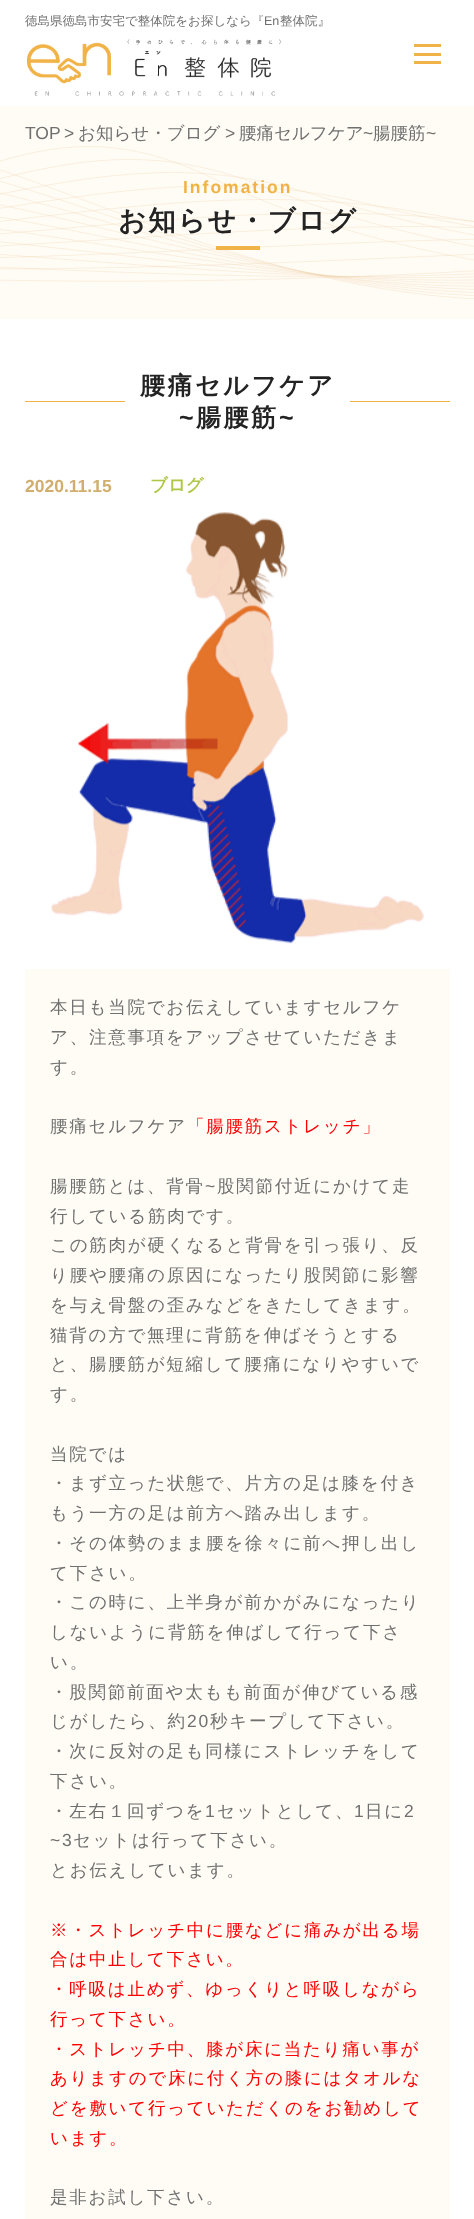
(async () => {
    const canvas = document.querySelector("canvas");
    canvas.width = 474;
    canvas.height = 2219;
    const context = canvas.getContext("2d");
    context.miterLimit = 4;
    context.fontKerning = "normal";
    function write(s, x, y, font, color) {
        context.font = font;
        context.fillStyle = color;
        context.fillText(s, x, y);
    }
    function block(x, y, w, h, color) {
        context.fillStyle = color;
        context.fillRect(x, y, w, h);
    }
    async function photo(src, x, y, w, h) {
        const img = new Image();
        img.src = src;
        await img.decode();
        context.drawImage(img, x, y, w, h);
    }

    block(0, 0, 474, 2219, "rgb(255, 255, 255)");
    write("徳島県徳島市安宅で整体院をお探しなら『", 25, 25, "500 12.5px WenQuanYi Zen Hei", "rgb(112, 112, 112)");
    write("En", 264, 25, "12.5px Liberation Sans", "rgb(112, 112, 112)");
    write("整体院』", 280, 25, "500 12.5px WenQuanYi Zen Hei", "rgb(112, 112, 112)");
    await photo("media/1.png", 27, 39, 255, 58);
    block(414, 44, 27, 3, "rgb(241, 179, 72)");
    block(414, 53, 27, 3, "rgb(241, 179, 72)");
    block(414, 61, 27, 3, "rgb(241, 179, 72)");
    block(0, 106, 474, 213, "rgb(255, 252, 245)");
    await photo("media/2.png", 0, 146, 474, 153);
    write("TOP", 25, 139, "17.5px Liberation Sans", "rgb(112, 112, 112)");
    write(">", 64, 139, "17.5px Liberation Sans", "rgb(112, 112, 112)");
    write("お知らせ・ブログ", 78, 139, "500 17.5px WenQuanYi Zen Hei", "rgb(112, 112, 112)");
    write(">", 225, 139, "17.5px Liberation Sans", "rgb(112, 112, 112)");
    write("腰痛セルフケア", 239, 139, "500 17.5px WenQuanYi Zen Hei", "rgb(112, 112, 112)");
    write("~", 363, 139, "17.5px Liberation Sans", "rgb(112, 112, 112)");
    write("腸腰筋", 373, 139, "500 17.5px WenQuanYi Zen Hei", "rgb(112, 112, 112)");
    write("~", 426, 139, "17.5px Liberation Sans", "rgb(112, 112, 112)");
    context.letterSpacing = "2px";
    write("Infomation", 183, 193, "bold 17.5px Liberation Sans", "rgb(241, 179, 72)");
    write("お知らせ・ブログ", 118, 230, "bold 27.5px WenQuanYi Zen Hei", "rgb(35, 35, 35)");
    block(216, 246, 44, 4, "rgb(241, 179, 72)");
    context.letterSpacing = "2.5px";
    write("腰痛セルフケア", 140, 394, "bold 25px WenQuanYi Zen Hei", "rgb(35, 35, 35)");
    block(25, 401, 100, 1, "rgb(241, 179, 72)");
    block(350, 401, 100, 1, "rgb(241, 179, 72)");
    write("~", 179, 426, "bold 25px Liberation Sans", "rgb(35, 35, 35)");
    write("腸腰筋", 196, 426, "bold 25px WenQuanYi Zen Hei", "rgb(35, 35, 35)");
    write("~", 279, 426, "bold 25px Liberation Sans", "rgb(35, 35, 35)");
    context.letterSpacing = "0px";
    write("2020.11.15", 25, 492, "bold 17.5px Liberation Sans", "rgb(209, 173, 110)");
    write("ブログ", 150, 491, "bold 17.5px WenQuanYi Zen Hei", "rgb(174, 199, 71)");
    await photo("media/3.png", 51, 512, 373, 432);
    block(25, 969, 425, 1250, "rgb(255, 252, 245)");
    context.letterSpacing = "1.75px";
    write("本日も当院でお伝えしていますセルフケ", 50, 1013, "500 17.5px WenQuanYi Zen Hei", "rgb(112, 112, 112)");
    write("ア、注意事項をアップさせていただきま", 50, 1043, "500 17.5px WenQuanYi Zen Hei", "rgb(112, 112, 112)");
    write("す。", 50, 1073, "500 17.5px WenQuanYi Zen Hei", "rgb(112, 112, 112)");
    write("腰痛セルフケア", 50, 1132, "500 17.5px WenQuanYi Zen Hei", "rgb(112, 112, 112)");
    write("「腸腰筋ストレッチ」", 187, 1132, "500 17.5px WenQuanYi Zen Hei", "rgb(255, 0, 0)");
    write("腸腰筋とは、背骨", 50, 1192, "500 17.5px WenQuanYi Zen Hei", "rgb(112, 112, 112)");
    write("~", 205, 1192, "17.5px Liberation Sans", "rgb(112, 112, 112)");
    write("股関節付近にかけて走", 217, 1192, "500 17.5px WenQuanYi Zen Hei", "rgb(112, 112, 112)");
    write("行している筋肉です。", 50, 1222, "500 17.5px WenQuanYi Zen Hei", "rgb(112, 112, 112)");
    write("この筋肉が硬くなると背骨を引っ張り、反", 50, 1251, "500 17.5px WenQuanYi Zen Hei", "rgb(112, 112, 112)");
    write("り腰や腰痛の原因になったり股関節に影響", 50, 1281, "500 17.5px WenQuanYi Zen Hei", "rgb(112, 112, 112)");
    write("を与え骨盤の歪みなどをきたしてきます。", 50, 1311, "500 17.5px WenQuanYi Zen Hei", "rgb(112, 112, 112)");
    write("猫背の方で無理に背筋を伸ばそうとする", 50, 1341, "500 17.5px WenQuanYi Zen Hei", "rgb(112, 112, 112)");
    write("と、腸腰筋が短縮して腰痛になりやすいで", 50, 1370, "500 17.5px WenQuanYi Zen Hei", "rgb(112, 112, 112)");
    write("す。", 50, 1400, "500 17.5px WenQuanYi Zen Hei", "rgb(112, 112, 112)");
    write("当院では", 50, 1460, "500 17.5px WenQuanYi Zen Hei", "rgb(112, 112, 112)");
    write("・まず立った状態で、片方の足は膝を付き", 50, 1489, "500 17.5px WenQuanYi Zen Hei", "rgb(112, 112, 112)");
    write("もう一方の足は前方へ踏み出します。", 50, 1519, "500 17.5px WenQuanYi Zen Hei", "rgb(112, 112, 112)");
    write("・その体勢のまま腰を徐々に前へ押し出し", 50, 1549, "500 17.5px WenQuanYi Zen Hei", "rgb(112, 112, 112)");
    write("て下さい。", 50, 1579, "500 17.5px WenQuanYi Zen Hei", "rgb(112, 112, 112)");
    write("・この時に、上半身が前かがみになったり", 50, 1608, "500 17.5px WenQuanYi Zen Hei", "rgb(112, 112, 112)");
    write("しないように背筋を伸ばして行って下さ", 50, 1638, "500 17.5px WenQuanYi Zen Hei", "rgb(112, 112, 112)");
    write("い。", 50, 1668, "500 17.5px WenQuanYi Zen Hei", "rgb(112, 112, 112)");
    write("・股関節前面や太もも前面が伸びている感", 50, 1698, "500 17.5px WenQuanYi Zen Hei", "rgb(112, 112, 112)");
    write("じがしたら、約", 50, 1727, "500 17.5px WenQuanYi Zen Hei", "rgb(112, 112, 112)");
    write("20", 187, 1727, "17.5px Liberation Sans", "rgb(112, 112, 112)");
    write("秒キープして下さい。", 210, 1727, "500 17.5px WenQuanYi Zen Hei", "rgb(112, 112, 112)");
    write("・次に反対の足も同様にストレッチをして", 50, 1757, "500 17.5px WenQuanYi Zen Hei", "rgb(112, 112, 112)");
    write("下さい。", 50, 1787, "500 17.5px WenQuanYi Zen Hei", "rgb(112, 112, 112)");
    write("・左右１回ずつを", 50, 1817, "500 17.5px WenQuanYi Zen Hei", "rgb(112, 112, 112)");
    write("1", 205, 1817, "17.5px Liberation Sans", "rgb(112, 112, 112)");
    write("セットとして、", 217, 1817, "500 17.5px WenQuanYi Zen Hei", "rgb(112, 112, 112)");
    write("1", 354, 1817, "17.5px Liberation Sans", "rgb(112, 112, 112)");
    write("日に", 365, 1817, "500 17.5px WenQuanYi Zen Hei", "rgb(112, 112, 112)");
    write("2", 404, 1817, "17.5px Liberation Sans", "rgb(112, 112, 112)");
    write("~3", 50, 1846, "17.5px Liberation Sans", "rgb(112, 112, 112)");
    write("セットは行って下さい。", 73, 1846, "500 17.5px WenQuanYi Zen Hei", "rgb(112, 112, 112)");
    write("とお伝えしています。", 50, 1876, "500 17.5px WenQuanYi Zen Hei", "rgb(112, 112, 112)");
    write("※・ストレッチ中に腰などに痛みが出る場", 50, 1936, "500 17.5px WenQuanYi Zen Hei", "rgb(255, 0, 0)");
    write("合は中止して下さい。", 50, 1965, "500 17.5px WenQuanYi Zen Hei", "rgb(255, 0, 0)");
    write("・呼吸は止めず、ゆっくりと呼吸しながら", 50, 1995, "500 17.5px WenQuanYi Zen Hei", "rgb(255, 0, 0)");
    write("行って下さい。", 50, 2025, "500 17.5px WenQuanYi Zen Hei", "rgb(255, 0, 0)");
    write("・ストレッチ中、膝が床に当たり痛い事が", 50, 2055, "500 17.5px WenQuanYi Zen Hei", "rgb(255, 0, 0)");
    write("ありますので床に付く方の膝にはタオルな", 50, 2084, "500 17.5px WenQuanYi Zen Hei", "rgb(255, 0, 0)");
    write("どを敷いて行っていただくのをお勧めして", 50, 2114, "500 17.5px WenQuanYi Zen Hei", "rgb(255, 0, 0)");
    write("います。", 50, 2144, "500 17.5px WenQuanYi Zen Hei", "rgb(255, 0, 0)");
    write("是非お試し下さい。", 50, 2203, "500 17.5px WenQuanYi Zen Hei", "rgb(112, 112, 112)");
})();
